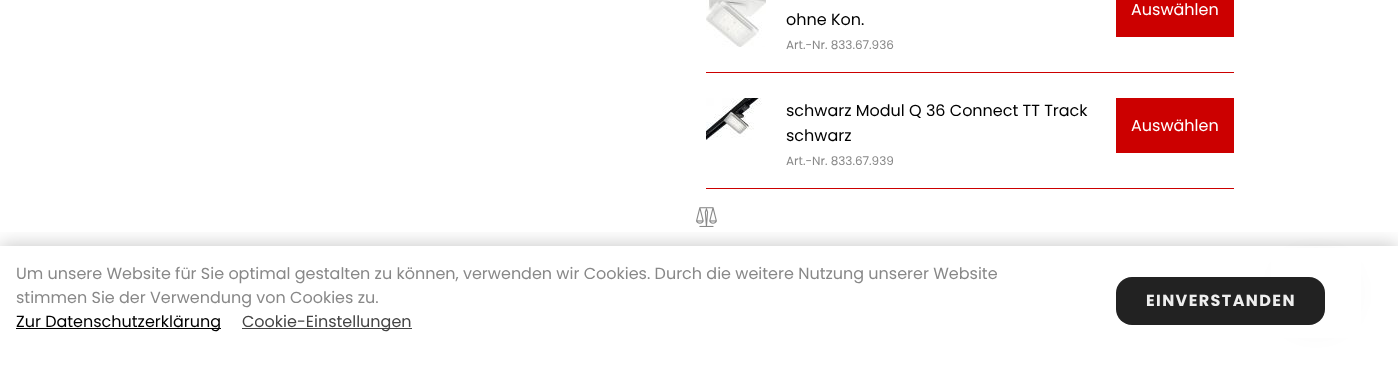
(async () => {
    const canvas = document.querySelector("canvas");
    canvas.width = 1398;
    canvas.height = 370;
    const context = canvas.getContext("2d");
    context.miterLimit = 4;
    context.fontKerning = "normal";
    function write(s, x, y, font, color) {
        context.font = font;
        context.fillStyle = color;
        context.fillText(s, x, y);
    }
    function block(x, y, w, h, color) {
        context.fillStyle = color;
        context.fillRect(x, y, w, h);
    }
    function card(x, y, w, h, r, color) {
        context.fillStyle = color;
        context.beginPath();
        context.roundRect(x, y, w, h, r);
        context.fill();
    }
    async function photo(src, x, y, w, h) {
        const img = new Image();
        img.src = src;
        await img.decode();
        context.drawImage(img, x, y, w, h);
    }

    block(0, 0, 1398, 370, "rgb(255, 255, 255)");
    block(706, 72, 528, 1, "rgb(204, 0, 0)");
    await photo("media/1.png", 706, 0, 60, 47);
    block(1116, 0, 118, 37, "rgb(204, 0, 0)");
    write("Auswählen", 1131, 15, "16px Poppins", "rgb(255, 255, 255)");
    write("ohne Kon.", 786, 25, "16px Poppins", "rgb(0, 0, 0)");
    write("Art.-Nr. 833.67.936", 786, 49, "12px Poppins", "rgb(136, 136, 136)");
    block(706, 188, 528, 1, "rgb(204, 0, 0)");
    await photo("media/2.png", 706, 98, 56, 42);
    write("schwarz Modul Q 36 Connect TT Track", 786, 116, "16px Poppins", "rgb(0, 0, 0)");
    write("schwarz", 786, 141, "16px Poppins", "rgb(0, 0, 0)");
    block(1116, 98, 118, 55, "rgb(204, 0, 0)");
    write("Auswählen", 1131, 131, "16px Poppins", "rgb(255, 255, 255)");
    write("Art.-Nr. 833.67.939", 786, 165, "12px Poppins", "rgb(136, 136, 136)");
    await photo("media/3.png", 696, 207, 21, 20);
    context.fillStyle = "rgba(0, 0, 0, 0.09)";
    context.filter = "blur(13.5px)";
    context.beginPath();
    context.roundRect(1284, 261, 64, 64, 32);
    context.fill();
    context.filter = "none";
    context.fillStyle = "rgb(255, 255, 255)";
    context.beginPath();
    context.arc(1316, 288, 32, 0, Math.PI * 2);
    context.fill();
    context.save();
    context.beginPath();
    context.rect(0, 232, 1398, 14);
    context.clip();
    context.fillStyle = "rgba(0, 0, 0, 0.2)";
    context.filter = "blur(9px)";
    context.beginPath();
    context.rect(0, 244, 1398, 124);
    context.fill();
    context.filter = "none";
    context.restore();
    block(1271, 248, 90, 90, "rgba(255, 255, 255, 0.95)");
    write("Um unsere Website für Sie optimal gestalten zu können, verwenden wir Cookies. Durch die weitere Nutzung unserer Website", 16, 279, "16px Poppins", "rgb(136, 136, 136)");
    write("stimmen Sie der Verwendung von Cookies zu.", 16, 303, "16px Poppins", "rgb(136, 136, 136)");
    block(16, 328, 205, 1, "rgb(0, 0, 0)");
    write("Zur Datenschutzerklärung", 16, 327, "16px Poppins", "rgb(0, 0, 0)");
    block(242, 328, 170, 1, "rgb(68, 68, 68)");
    write("Cookie-Einstellungen", 242, 327, "16px Poppins", "rgb(68, 68, 68)");
    card(1116, 277, 209, 48, 16, "rgb(34, 34, 34)");
    context.letterSpacing = "1.4px";
    write("EINVERSTANDEN", 1146, 306, "bold 16px Poppins", "rgb(238, 238, 238)");
})();
